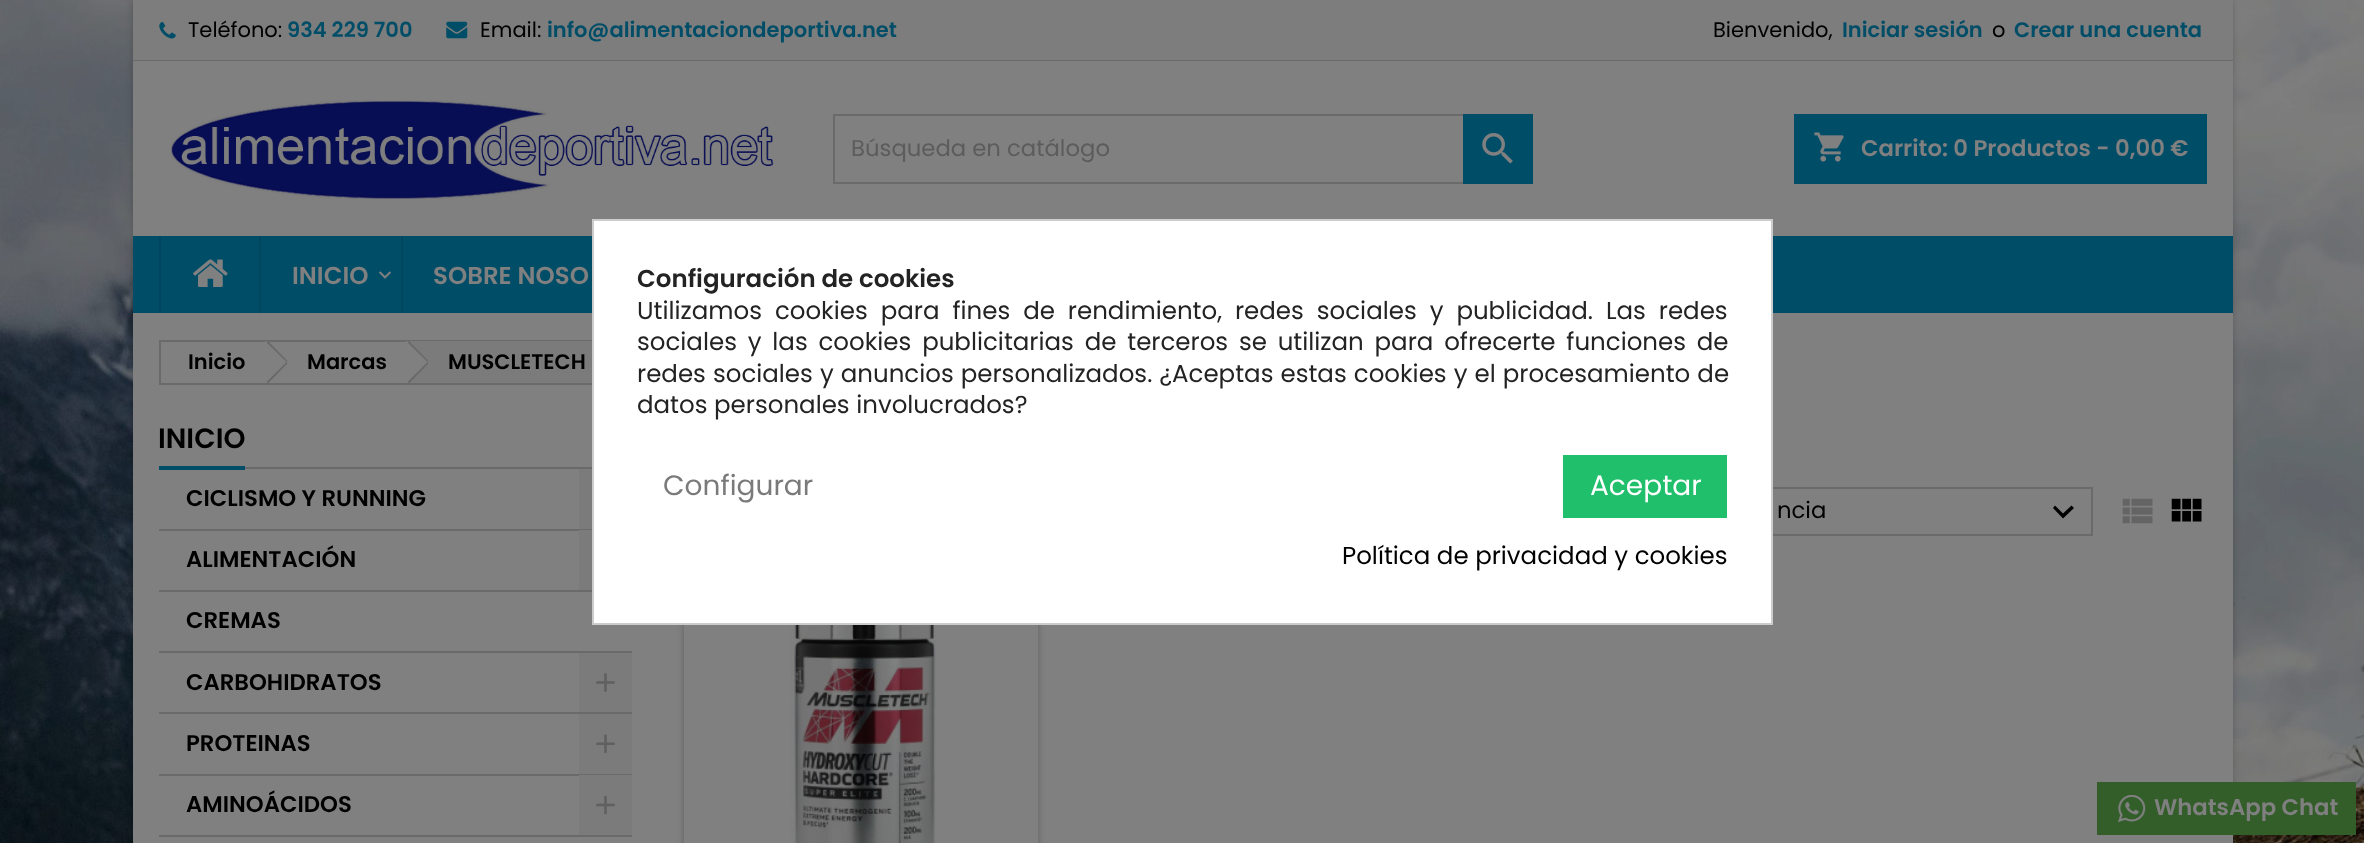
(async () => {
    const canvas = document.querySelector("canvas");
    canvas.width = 2364;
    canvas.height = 843;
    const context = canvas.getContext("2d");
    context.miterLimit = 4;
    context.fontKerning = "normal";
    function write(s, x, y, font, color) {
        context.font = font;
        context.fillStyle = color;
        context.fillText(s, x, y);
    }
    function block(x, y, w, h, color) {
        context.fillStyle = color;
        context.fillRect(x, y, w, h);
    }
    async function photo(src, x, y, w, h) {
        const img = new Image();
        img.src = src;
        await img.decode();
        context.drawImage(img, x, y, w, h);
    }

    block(0, 0, 2364, 843, "rgb(255, 255, 255)");
    await photo("media/1.png", 0, 0, 2364, 843);
    context.fillStyle = "rgba(0, 0, 0, 0.2)";
    context.filter = "blur(3.5px)";
    context.beginPath();
    context.rect(133, 0, 2100, 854);
    context.fill();
    context.filter = "none";
    block(133, 313, 2100, 530, "rgb(128, 128, 128)");
    block(133, 0, 2100, 60, "rgb(125, 125, 125)");
    block(133, 60, 2100, 1, "rgb(107, 106, 106)");
    await photo("media/2.png", 159, 22, 17, 17);
    write("Teléfono:", 188, 37, "21px Poppins", "rgb(0, 0, 0)");
    write("934 229 700", 287, 37, "600 21px Poppins", "rgb(0, 77, 104)");
    await photo("media/3.png", 446, 21, 22, 18);
    write("Email:", 480, 37, "21px Poppins", "rgb(0, 0, 0)");
    write("info@alimentaciondeportiva.net", 547, 37, "600 21px Poppins", "rgb(0, 77, 104)");
    write("Bienvenido,", 1713, 37, "21px Poppins", "rgb(0, 0, 0)");
    write("Iniciar sesión", 1842, 37, "600 21px Poppins", "rgb(0, 77, 104)");
    write("o", 1992, 37, "21px Poppins", "rgb(0, 0, 0)");
    write("Crear una cuenta", 2014, 37, "600 21px Poppins", "rgb(0, 77, 104)");
    block(133, 61, 2100, 175, "rgb(128, 128, 128)");
    await photo("media/4.png", 170, 100, 604, 99);
    context.strokeStyle = "rgb(107, 106, 106)";
    context.lineWidth = 2;
    context.strokeRect(834, 115, 698, 68);
    write("Búsqueda en catálogo", 851, 156, "22.75px Poppins", "rgb(92, 92, 92)");
    block(1463, 114, 70, 70, "rgb(0, 77, 104)");
    await photo("media/5.png", 1482, 133, 31, 31);
    block(1794, 114, 413, 70, "rgb(0, 77, 104)");
    await photo("media/6.png", 1814, 132, 30, 30);
    write("Carrito: 0 Productos - 0,00 €", 1861, 156, "600 22.75px Poppins", "rgb(128, 128, 128)");
    block(133, 236, 2100, 77, "rgb(0, 77, 104)");
    block(159, 236, 2, 77, "rgb(0, 70, 94)");
    await photo("media/7.png", 193, 259, 35, 28);
    block(259, 236, 2, 77, "rgb(0, 70, 94)");
    write("INICIO", 292, 284, "600 24.5px Poppins", "rgb(128, 128, 128)");
    await photo("media/8.png", 379, 271, 12, 8);
    block(401, 236, 2, 77, "rgb(0, 70, 94)");
    write("SOBRE NOSO", 433, 284, "600 24.5px Poppins", "rgb(128, 128, 128)");
    context.strokeRect(160, 341, 446, 43);
    write("Inicio", 188, 369, "600 21px Poppins", "rgb(0, 0, 0)");
    context.fillStyle = "rgb(128, 128, 128)";
    context.beginPath();
    context.moveTo(269, 342);
    context.lineTo(286, 360);
    context.bezierCurveTo(288, 361, 288, 363, 286, 365);
    context.lineTo(269, 382);
    context.bezierCurveTo(268, 383, 265, 383, 264, 382);
    context.lineTo(247, 365);
    context.bezierCurveTo(245, 363, 245, 361, 247, 360);
    context.lineTo(264, 342);
    context.bezierCurveTo(265, 341, 268, 341, 269, 342);
    context.closePath();
    context.fill();
    context.fillStyle = "rgb(107, 106, 106)";
    context.beginPath();
    context.moveTo(268, 341);
    context.lineTo(287.5, 361);
    context.lineTo(286.5, 362);
    context.lineTo(266.5, 342.5);
    context.closePath();
    context.moveTo(286.5, 362);
    context.lineTo(287.5, 363.5);
    context.lineTo(268, 383.5);
    context.lineTo(266.5, 382);
    context.closePath();
    context.fill();
    write("Marcas", 307, 369, "600 21px Poppins", "rgb(0, 0, 0)");
    block(410, 341, 182, 42, "rgb(123, 123, 123)");
    context.fillStyle = "rgb(128, 128, 128)";
    context.beginPath();
    context.moveTo(410, 342);
    context.lineTo(427, 360);
    context.bezierCurveTo(429, 361, 429, 363, 427, 365);
    context.lineTo(410, 382);
    context.bezierCurveTo(409, 383, 406, 383, 405, 382);
    context.lineTo(388, 365);
    context.bezierCurveTo(386, 363, 386, 361, 388, 360);
    context.lineTo(405, 342);
    context.bezierCurveTo(406, 341, 409, 341, 410, 342);
    context.closePath();
    context.fill();
    context.fillStyle = "rgb(107, 106, 106)";
    context.beginPath();
    context.moveTo(409, 341);
    context.lineTo(428.5, 361);
    context.lineTo(427.5, 362);
    context.lineTo(407.5, 342.5);
    context.closePath();
    context.moveTo(427.5, 362);
    context.lineTo(428.5, 363.5);
    context.lineTo(409, 383.5);
    context.lineTo(407.5, 382);
    context.closePath();
    context.fill();
    write("MUSCLETECH", 448, 369, "600 21px Poppins", "rgb(0, 0, 0)");
    block(245, 467, 347, 2, "rgb(107, 106, 106)");
    block(159, 466, 86, 4, "rgb(0, 77, 104)");
    write("INICIO", 158, 448, "600 28px Poppins", "rgb(0, 0, 0)");
    block(159, 529, 433, 2, "rgb(107, 106, 106)");
    write("CICLISMO Y RUNNING", 186, 506, "600 22.75px Poppins", "rgb(0, 0, 0)");
    block(579, 469, 13, 60, "rgb(123, 123, 123)");
    block(159, 590, 433, 2, "rgb(107, 106, 106)");
    write("ALIMENTACIÓN", 186, 567, "600 22.75px Poppins", "rgb(0, 0, 0)");
    block(579, 530, 13, 60, "rgb(123, 123, 123)");
    block(159, 651, 473, 2, "rgb(107, 106, 106)");
    write("CREMAS", 186, 628, "600 22.75px Poppins", "rgb(0, 0, 0)");
    block(159, 712, 473, 2, "rgb(107, 106, 106)");
    write("CARBOHIDRATOS", 186, 690, "600 22.75px Poppins", "rgb(0, 0, 0)");
    block(579, 653, 53, 59, "rgb(123, 123, 123)");
    await photo("media/9.png", 596, 673, 19, 19);
    block(159, 774, 473, 2, "rgb(107, 106, 106)");
    write("PROTEINAS", 186, 751, "600 22.75px Poppins", "rgb(0, 0, 0)");
    block(579, 714, 53, 60, "rgb(123, 123, 123)");
    await photo("media/10.png", 596, 734, 19, 19);
    block(159, 835, 473, 2, "rgb(107, 106, 106)");
    write("AMINOÁCIDOS", 186, 812, "600 22.75px Poppins", "rgb(0, 0, 0)");
    block(579, 775, 53, 60, "rgb(123, 123, 123)");
    await photo("media/11.png", 596, 795, 19, 20);
    context.strokeRect(1683, 488, 409, 47);
    write("ncia", 1777, 518, "22.75px Poppins", "rgb(0, 0, 0)");
    context.beginPath();
    context.moveTo(2055, 505.5);
    context.lineTo(2063, 513.5);
    context.lineTo(2071.5, 505.5);
    context.lineTo(2074, 508);
    context.lineTo(2063, 518.5);
    context.lineTo(2053, 508);
    context.closePath();
    context.fill();
    await photo("media/12.png", 2122, 498, 31, 26);
    await photo("media/13.png", 2171, 498, 31, 24);
    context.fillStyle = "rgba(0, 0, 0, 0.24)";
    context.filter = "blur(3.5px)";
    context.beginPath();
    context.rect(684, 572, 354, 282);
    context.fill();
    context.filter = "none";
    block(684, 625, 354, 218, "rgb(128, 128, 128)");
    await photo("media/14.png", 790, 625, 146, 218);
    block(2097, 782, 259, 53, "rgb(51, 94, 42)");
    await photo("media/15.png", 2118, 795, 28, 27);
    write("WhatsApp Chat", 2154, 815, "600 22.75px Poppins", "rgb(128, 128, 128)");
    context.fillStyle = "rgb(255, 255, 255)";
    context.beginPath();
    context.rect(593, 220, 1179, 404);
    context.fill();
    context.strokeStyle = "rgb(204, 204, 204)";
    context.stroke();
    write("Configuración de cookies", 637, 287, "600 24.5px Poppins", "rgb(35, 35, 35)");
    context.wordSpacing = "6.4px";
    write("Utilizamos cookies para fines de rendimiento, redes sociales y publicidad. Las redes", 637, 319, "24.5px Poppins", "rgb(35, 35, 35)");
    context.wordSpacing = "4.25px";
    write("sociales y las cookies publicitarias de terceros se utilizan para ofrecerte funciones de", 637, 350, "24.5px Poppins", "rgb(35, 35, 35)");
    context.wordSpacing = "0.5px";
    write("redes sociales y anuncios personalizados. ¿Aceptas estas cookies y el procesamiento de", 637, 382, "24.5px Poppins", "rgb(35, 35, 35)");
    context.wordSpacing = "0px";
    write("datos personales involucrados?", 637, 413, "24.5px Poppins", "rgb(35, 35, 35)");
    write("Configurar", 663, 495, "28px Poppins", "rgb(122, 122, 122)");
    block(1563, 455, 164, 63, "rgb(32, 191, 107)");
    write("Aceptar", 1590, 495, "28px Poppins", "rgb(255, 255, 255)");
    write("Política de privacidad y cookies", 1342, 564, "24.5px Poppins", "rgb(0, 0, 0)");
})();
